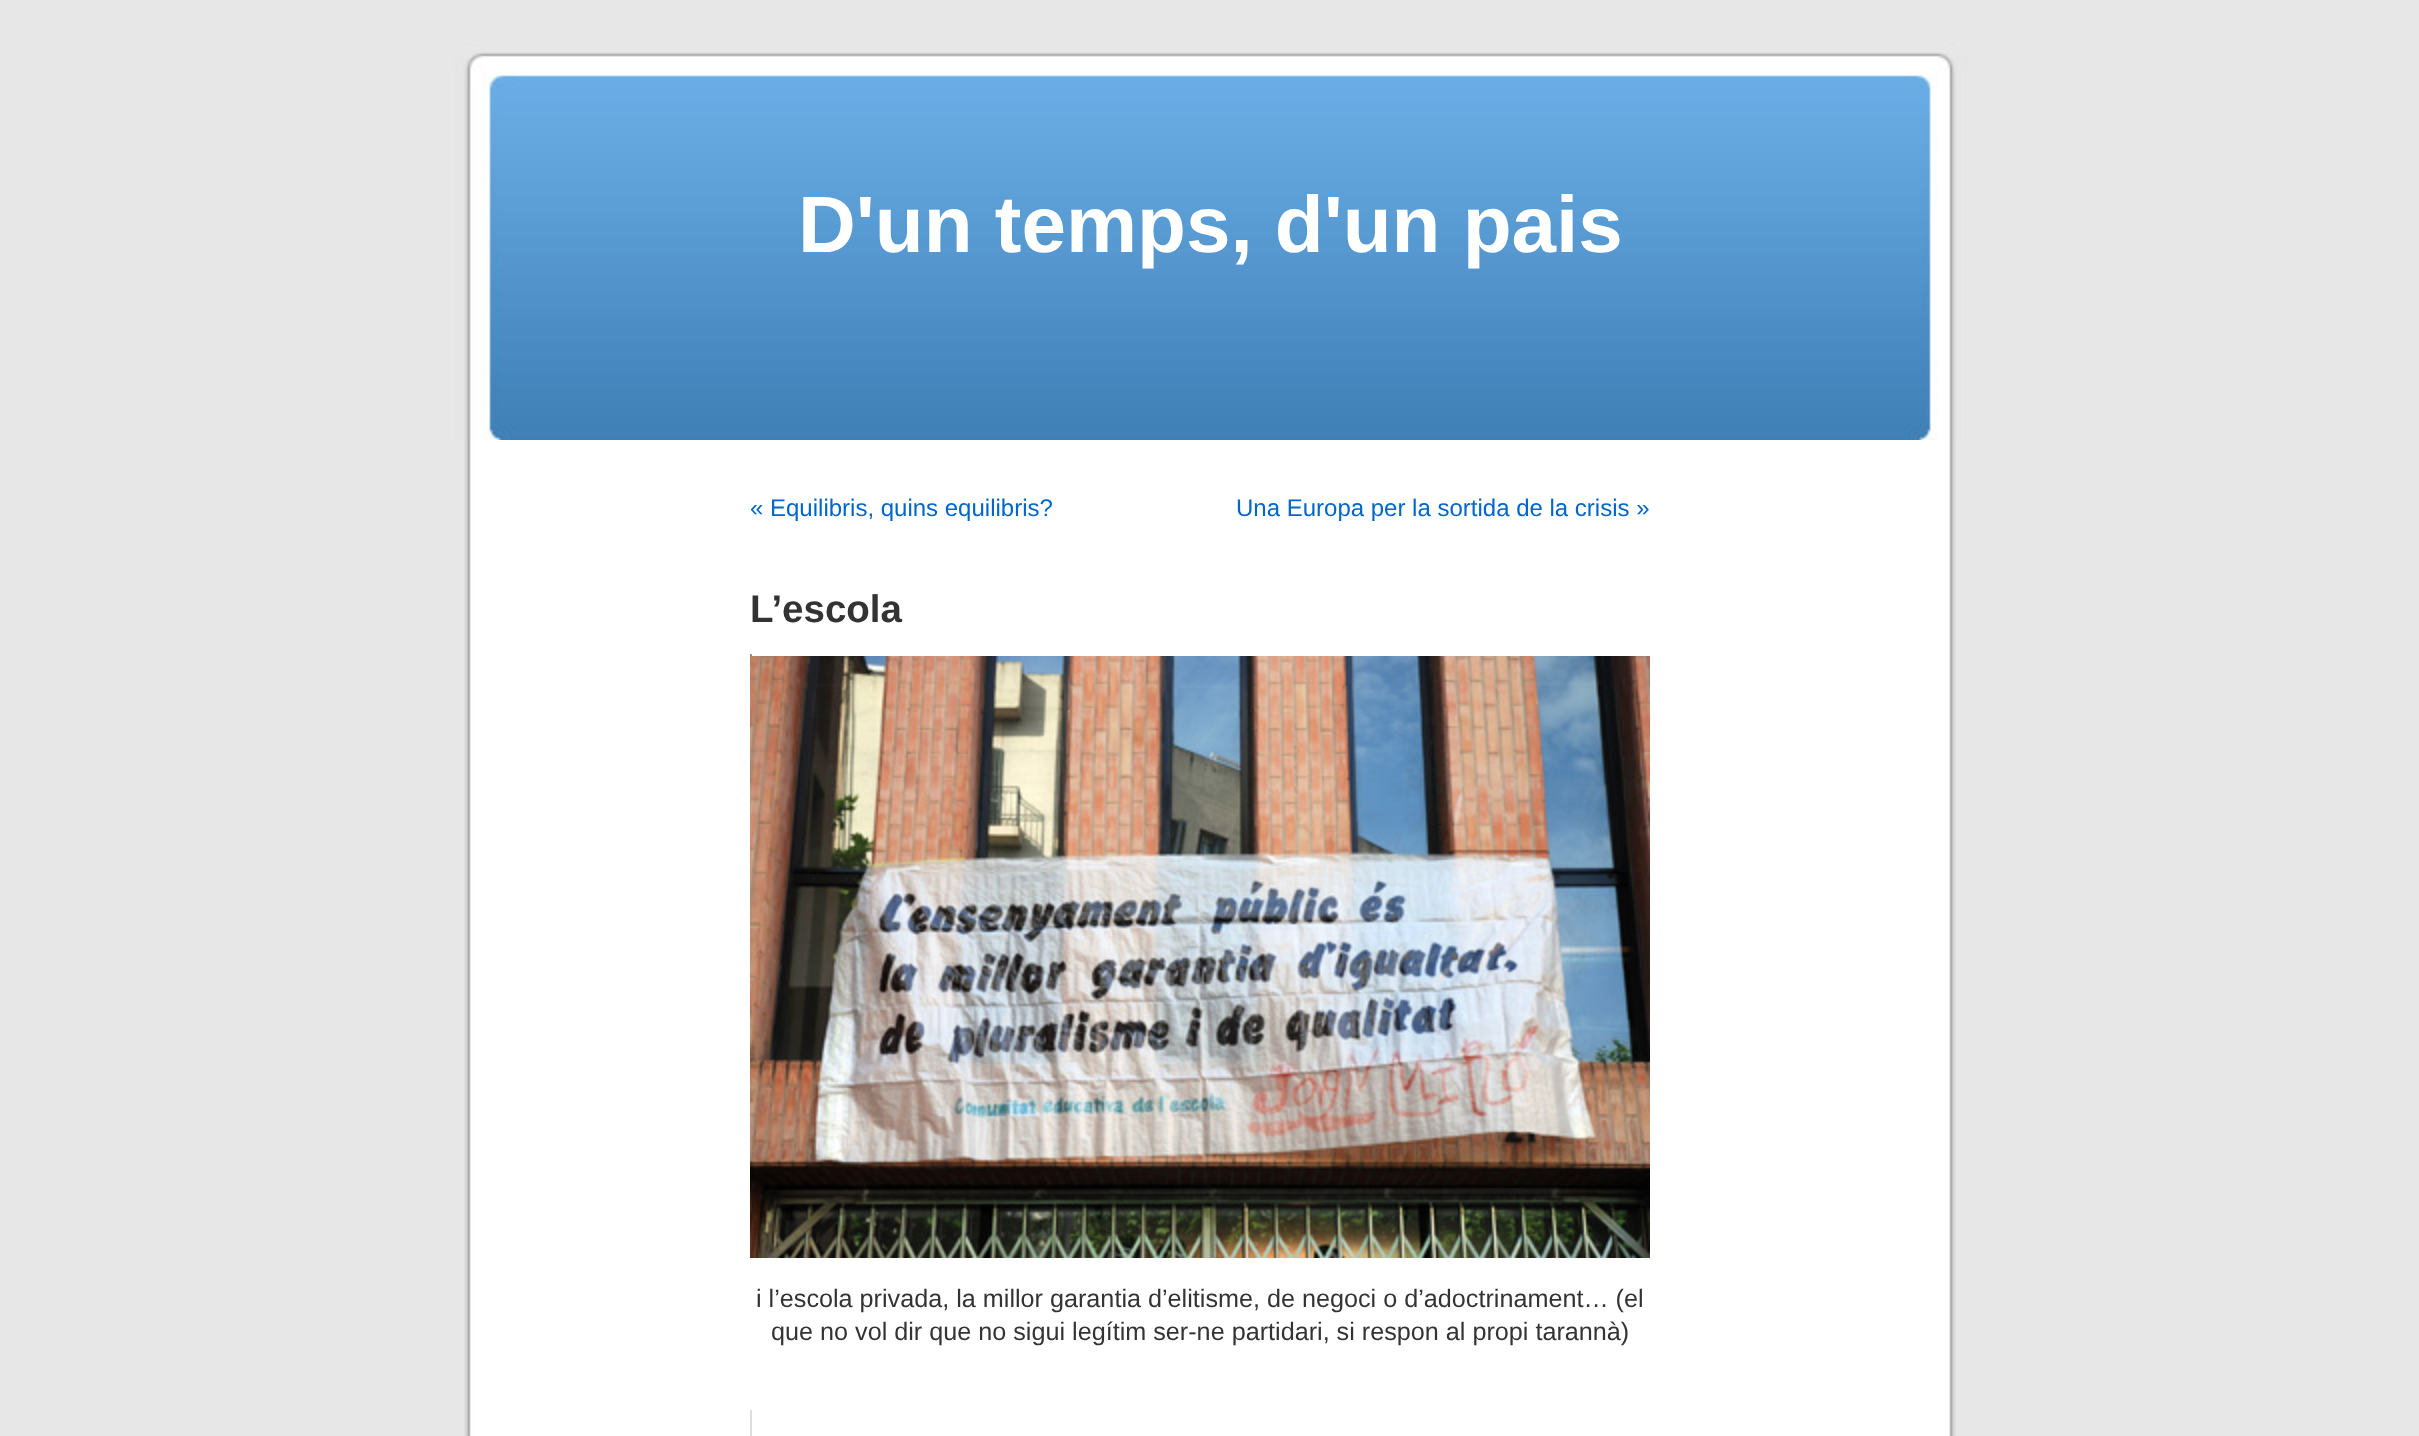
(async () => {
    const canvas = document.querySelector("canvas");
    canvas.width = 2419;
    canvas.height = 1436;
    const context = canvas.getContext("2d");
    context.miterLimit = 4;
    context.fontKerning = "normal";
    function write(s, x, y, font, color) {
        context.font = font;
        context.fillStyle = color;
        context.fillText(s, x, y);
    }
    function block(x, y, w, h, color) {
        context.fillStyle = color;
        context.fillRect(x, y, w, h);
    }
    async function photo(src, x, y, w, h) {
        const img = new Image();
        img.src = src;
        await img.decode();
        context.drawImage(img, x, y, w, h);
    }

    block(0, 0, 2419, 1436, "rgb(231, 231, 231)");
    await photo("media/1.png", 464, 440, 1492, 996);
    await photo("media/2.png", 452, 40, 1516, 400);
    write("D'un temps, d'un pais", 798, 252, "bold 80px Liberation Sans", "rgb(255, 255, 255)");
    write("« Equilibris, quins equilibris?", 750, 516, "24px Liberation Sans", "rgb(0, 102, 204)");
    write("Una Europa per la sortida de la crisis »", 1236, 516, "24px Liberation Sans", "rgb(0, 102, 204)");
    write("L’escola", 750, 622, "bold 38.5px Liberation Sans", "rgb(51, 51, 51)");
    await photo("media/3.png", 750, 654, 2, 2);
    await photo("media/4.png", 750, 656, 900, 602);
    write("i l’escola privada, la millor garantia d’elitisme, de negoci o d’adoctrinament… (el", 756, 1307, "25.2px Liberation Sans", "rgb(51, 51, 51)");
    write("que no vol dir que no sigui legítim ser-ne partidari, si respon al propi tarannà)", 771, 1340, "25.2px Liberation Sans", "rgb(51, 51, 51)");
    block(750, 1410, 2, 26, "rgb(221, 221, 221)");
})();
